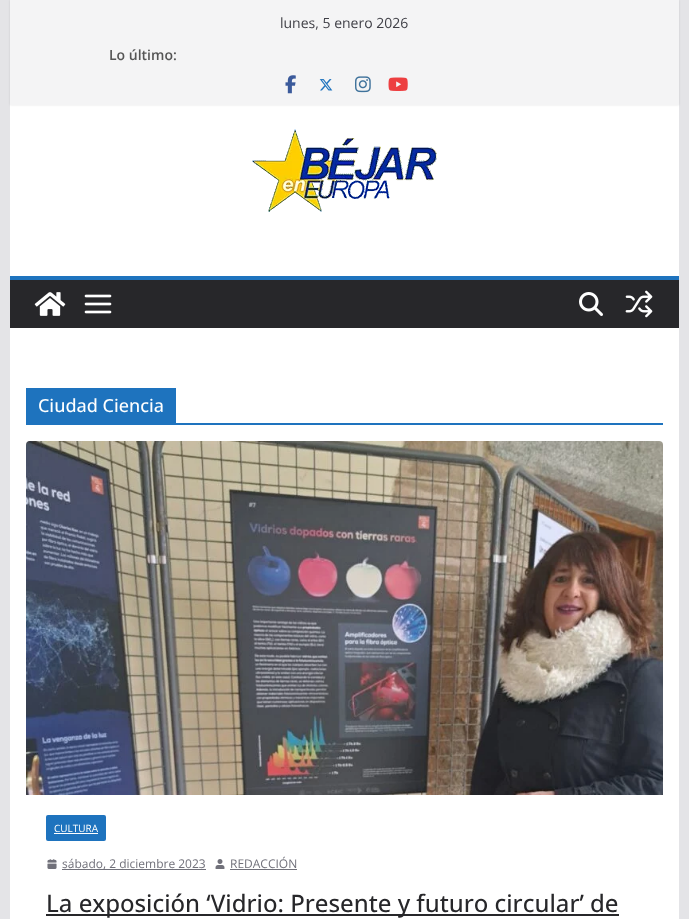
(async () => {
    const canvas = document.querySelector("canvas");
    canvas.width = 689;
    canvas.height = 919;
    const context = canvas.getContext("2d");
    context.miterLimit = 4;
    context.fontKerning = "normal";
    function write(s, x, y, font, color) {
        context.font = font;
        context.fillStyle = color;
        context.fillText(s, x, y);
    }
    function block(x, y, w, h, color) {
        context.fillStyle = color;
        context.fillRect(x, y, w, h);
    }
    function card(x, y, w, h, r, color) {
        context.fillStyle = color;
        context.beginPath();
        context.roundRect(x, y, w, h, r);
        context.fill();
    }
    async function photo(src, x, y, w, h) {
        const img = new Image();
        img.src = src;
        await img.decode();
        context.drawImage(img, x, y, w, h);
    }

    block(0, 0, 689, 919, "rgb(228, 228, 231)");
    block(10, 105, 669, 171, "rgb(255, 255, 255)");
    context.fillStyle = "rgba(0, 0, 0, 0.1)";
    context.filter = "blur(1px)";
    context.beginPath();
    context.rect(10, 0, 669, 105);
    context.fill();
    context.filter = "none";
    block(10, 0, 669, 105, "rgb(244, 244, 245)");
    write("lunes, 5 enero 2026", 280, 28, "14px Open Sans", "rgb(63, 63, 70)");
    write("Lo último:", 109, 60, "600 14px Open Sans", "rgb(85, 85, 85)");
    await photo("media/1.png", 285, 75, 11, 19);
    await photo("media/2.png", 319, 79, 14, 12);
    await photo("media/3.png", 355, 76, 16, 17);
    await photo("media/4.png", 388, 77, 20, 14);
    await photo("media/5.png", 252, 129, 185, 83);
    block(10, 280, 669, 48, "rgb(39, 39, 42)");
    block(10, 276, 669, 4, "rgb(30, 115, 190)");
    await photo("media/6.png", 34, 292, 32, 24);
    await photo("media/7.png", 84, 294, 28, 20);
    await photo("media/8.png", 579, 292, 24, 24);
    await photo("media/9.png", 625, 290, 28, 28);
    block(10, 328, 669, 591, "rgb(255, 255, 255)");
    block(26, 423, 637, 2, "rgb(30, 115, 190)");
    block(26, 388, 150, 35, "rgb(30, 115, 190)");
    write("Ciudad Ciencia", 38, 412, "500 18px Open Sans", "rgb(255, 255, 255)");
    await photo("media/10.png", 26, 441, 637, 354);
    card(46, 815, 60, 26, 2, "rgb(30, 115, 190)");
    write("CULTURA", 54, 832, "10px Open Sans", "rgb(255, 255, 255)");
    block(54, 833, 44, 1, "rgb(255, 255, 255)");
    await photo("media/11.png", 47, 859, 10, 10);
    block(62, 869, 144, 1, "rgb(113, 113, 122)");
    write("sábado, 2 diciembre 2023", 62, 868, "12px Open Sans", "rgb(113, 113, 122)");
    await photo("media/12.png", 215, 859, 10, 10);
    write("REDACCIÓN", 230, 868, "12px Open Sans", "rgb(113, 113, 122)");
    block(230, 869, 67, 1, "rgb(113, 113, 122)");
    block(46, 914, 573, 2, "rgb(39, 39, 42)");
    write("La exposición ‘Vidrio: Presente y futuro circular’ de", 46, 912, "500 24px Open Sans", "rgb(39, 39, 42)");
})();
